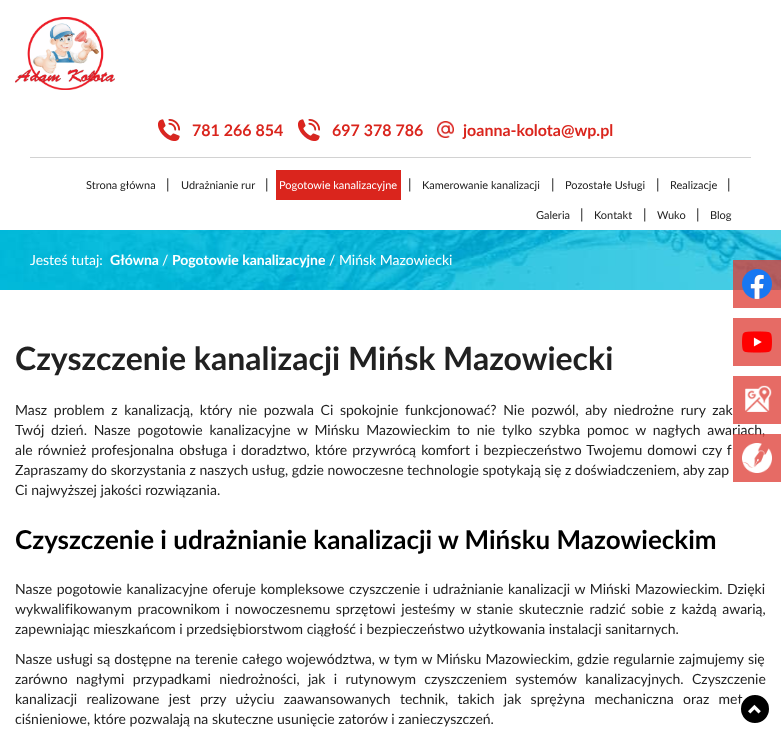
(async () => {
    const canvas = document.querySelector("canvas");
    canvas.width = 781;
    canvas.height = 735;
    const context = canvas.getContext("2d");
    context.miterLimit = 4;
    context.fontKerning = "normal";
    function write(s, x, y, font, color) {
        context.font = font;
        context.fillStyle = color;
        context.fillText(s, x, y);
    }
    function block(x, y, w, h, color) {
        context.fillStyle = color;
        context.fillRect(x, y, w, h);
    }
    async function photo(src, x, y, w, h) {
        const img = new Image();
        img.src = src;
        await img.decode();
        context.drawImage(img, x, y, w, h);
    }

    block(0, 0, 781, 735, "rgb(255, 255, 255)");
    await photo("media/1.png", 15, 17, 100, 73);
    block(30, 157, 721, 1, "rgb(210, 210, 210)");
    await photo("media/2.png", 158, 119, 22, 22);
    write("781 266 854", 192, 136, "bold 16px Lato", "rgb(218, 37, 29)");
    await photo("media/2.png", 298, 119, 22, 22);
    write("697 378 786", 332, 136, "bold 16px Lato", "rgb(218, 37, 29)");
    await photo("media/3.png", 437, 121, 17, 17);
    write("joanna-kolota@wp.pl", 463, 136, "bold 16px Lato", "rgb(218, 37, 29)");
    write("Strona główna", 86, 189, "11px Lato", "rgb(33, 33, 33)");
    write("|", 166, 189, "14px Lato", "rgb(33, 33, 33)");
    write("Udrażnianie rur", 181, 189, "11px Lato", "rgb(33, 33, 33)");
    write("|", 265, 189, "14px Lato", "rgb(33, 33, 33)");
    block(276, 170, 125, 30, "rgb(218, 37, 29)");
    write("Pogotowie kanalizacyjne", 279, 189, "11px Lato", "rgb(255, 255, 255)");
    write("|", 408, 189, "14px Lato", "rgb(33, 33, 33)");
    write("Kamerowanie kanalizacji", 422, 189, "11px Lato", "rgb(33, 33, 33)");
    write("|", 551, 189, "14px Lato", "rgb(33, 33, 33)");
    write("Pozostałe Usługi", 565, 189, "11px Lato", "rgb(33, 33, 33)");
    write("|", 656, 189, "14px Lato", "rgb(33, 33, 33)");
    write("Realizacje", 670, 189, "11px Lato", "rgb(33, 33, 33)");
    write("|", 727, 189, "14px Lato", "rgb(33, 33, 33)");
    write("Galeria", 536, 219, "11px Lato", "rgb(33, 33, 33)");
    write("|", 580, 219, "14px Lato", "rgb(33, 33, 33)");
    write("Kontakt", 594, 219, "11px Lato", "rgb(33, 33, 33)");
    write("|", 643, 219, "14px Lato", "rgb(33, 33, 33)");
    write("Wuko", 657, 219, "11px Lato", "rgb(33, 33, 33)");
    write("|", 696, 219, "14px Lato", "rgb(33, 33, 33)");
    write("Blog", 710, 219, "11px Lato", "rgb(33, 33, 33)");
    await photo("media/4.png", 0, 230, 781, 60);
    write("Jesteś tutaj:", 30, 265, "14px Lato", "rgb(255, 255, 255)");
    write("Główna", 110, 265, "bold 14px Lato", "rgb(255, 255, 255)");
    write("/", 162, 265, "14px Lato", "rgb(255, 255, 255)");
    write("Pogotowie kanalizacyjne", 172, 265, "bold 14px Lato", "rgb(255, 255, 255)");
    write("/ Mińsk Mazowiecki", 329, 265, "14px Lato", "rgb(255, 255, 255)");
    block(733, 260, 48, 48, "rgba(221, 57, 49, 0.75)");
    await photo("media/5.png", 742, 269, 30, 30);
    block(733, 318, 48, 48, "rgb(230, 107, 101)");
    await photo("media/6.png", 742, 331, 30, 22);
    block(733, 376, 48, 48, "rgba(221, 57, 49, 0.75)");
    await photo("media/7.png", 745, 385, 27, 27);
    context.wordSpacing = "3.1px";
    write("Twój dzień. Nasze pogotowie kanalizacyjne w Mińsku Mazowieckim to nie tylko szybka pomoc w nagłych awariach,", 15, 435, "14px Lato", "rgb(33, 33, 33)");
    block(733, 434, 48, 48, "rgba(221, 57, 49, 0.75)");
    await photo("media/8.png", 742, 443, 30, 30);
    context.wordSpacing = "0px";
    write("Czyszczenie kanalizacji Mińsk Mazowiecki", 15, 370, "bold 32px Lato", "rgb(33, 33, 33)");
    context.wordSpacing = "3.1px";
    write("Masz problem z kanalizacją, który nie pozwala Ci spokojnie funkcjonować? Nie pozwól, aby niedrożne rury zak", 15, 415, "14px Lato", "rgb(33, 33, 33)");
    context.wordSpacing = "1.5px";
    write("ale również profesjonalna obsługa i doradztwo, które przywrócą komfort i bezpieczeństwo Twojemu domowi czy f", 15, 455, "14px Lato", "rgb(33, 33, 33)");
    context.wordSpacing = "0px";
    write("Zapraszamy do skorzystania z naszych usług, gdzie nowoczesne technologie spotykają się z doświadczeniem, aby zap", 15, 475, "14px Lato", "rgb(33, 33, 33)");
    write("Ci najwyższej jakości rozwiązania.", 15, 495, "14px Lato", "rgb(33, 33, 33)");
    write("Czyszczenie i udrażnianie kanalizacji w Mińsku Mazowieckim", 15, 549, "bold 26px Lato", "rgb(0, 0, 0)");
    context.wordSpacing = "1px";
    write("Nasze pogotowie kanalizacyjne oferuje kompleksowe czyszczenie i udrażnianie kanalizacji w Miński Mazowieckim. Dzięki", 15, 594, "14px Lato", "rgb(33, 33, 33)");
    context.wordSpacing = "2.1px";
    write("wykwalifikowanym pracownikom i nowoczesnemu sprzętowi jesteśmy w stanie skutecznie radzić sobie z każdą awarią,", 15, 614, "14px Lato", "rgb(33, 33, 33)");
    context.wordSpacing = "0px";
    write("zapewniając mieszkańcom i przedsiębiorstwom ciągłość i bezpieczeństwo użytkowania instalacji sanitarnych.", 15, 634, "14px Lato", "rgb(33, 33, 33)");
    context.wordSpacing = "0.6px";
    write("Nasze usługi są dostępne na terenie całego województwa, w tym w Mińsku Mazowieckim, gdzie regularnie zajmujemy się", 15, 664, "14px Lato", "rgb(33, 33, 33)");
    context.wordSpacing = "4.75px";
    write("zarówno nagłymi przypadkami niedrożności, jak i rutynowym czyszczeniem systemów kanalizacyjnych. Czyszczenie", 15, 684, "14px Lato", "rgb(33, 33, 33)");
    context.wordSpacing = "5.75px";
    write("kanalizacji realizowane jest przy użyciu zaawansowanych technik, takich jak sprężyna mechaniczna oraz met", 15, 704, "14px Lato", "rgb(33, 33, 33)");
    context.wordSpacing = "0px";
    write("ciśnieniowe, które pozwalają na skuteczne usunięcie zatorów i zanieczyszczeń.", 15, 724, "14px Lato", "rgb(33, 33, 33)");
    context.fillStyle = "rgb(0, 0, 0)";
    context.beginPath();
    context.arc(755, 709, 15, 0, Math.PI * 2);
    context.fill();
    context.strokeStyle = "rgb(255, 255, 255)";
    context.lineWidth = 2;
    context.stroke();
    await photo("media/9.png", 748, 704, 13, 10);
})();
